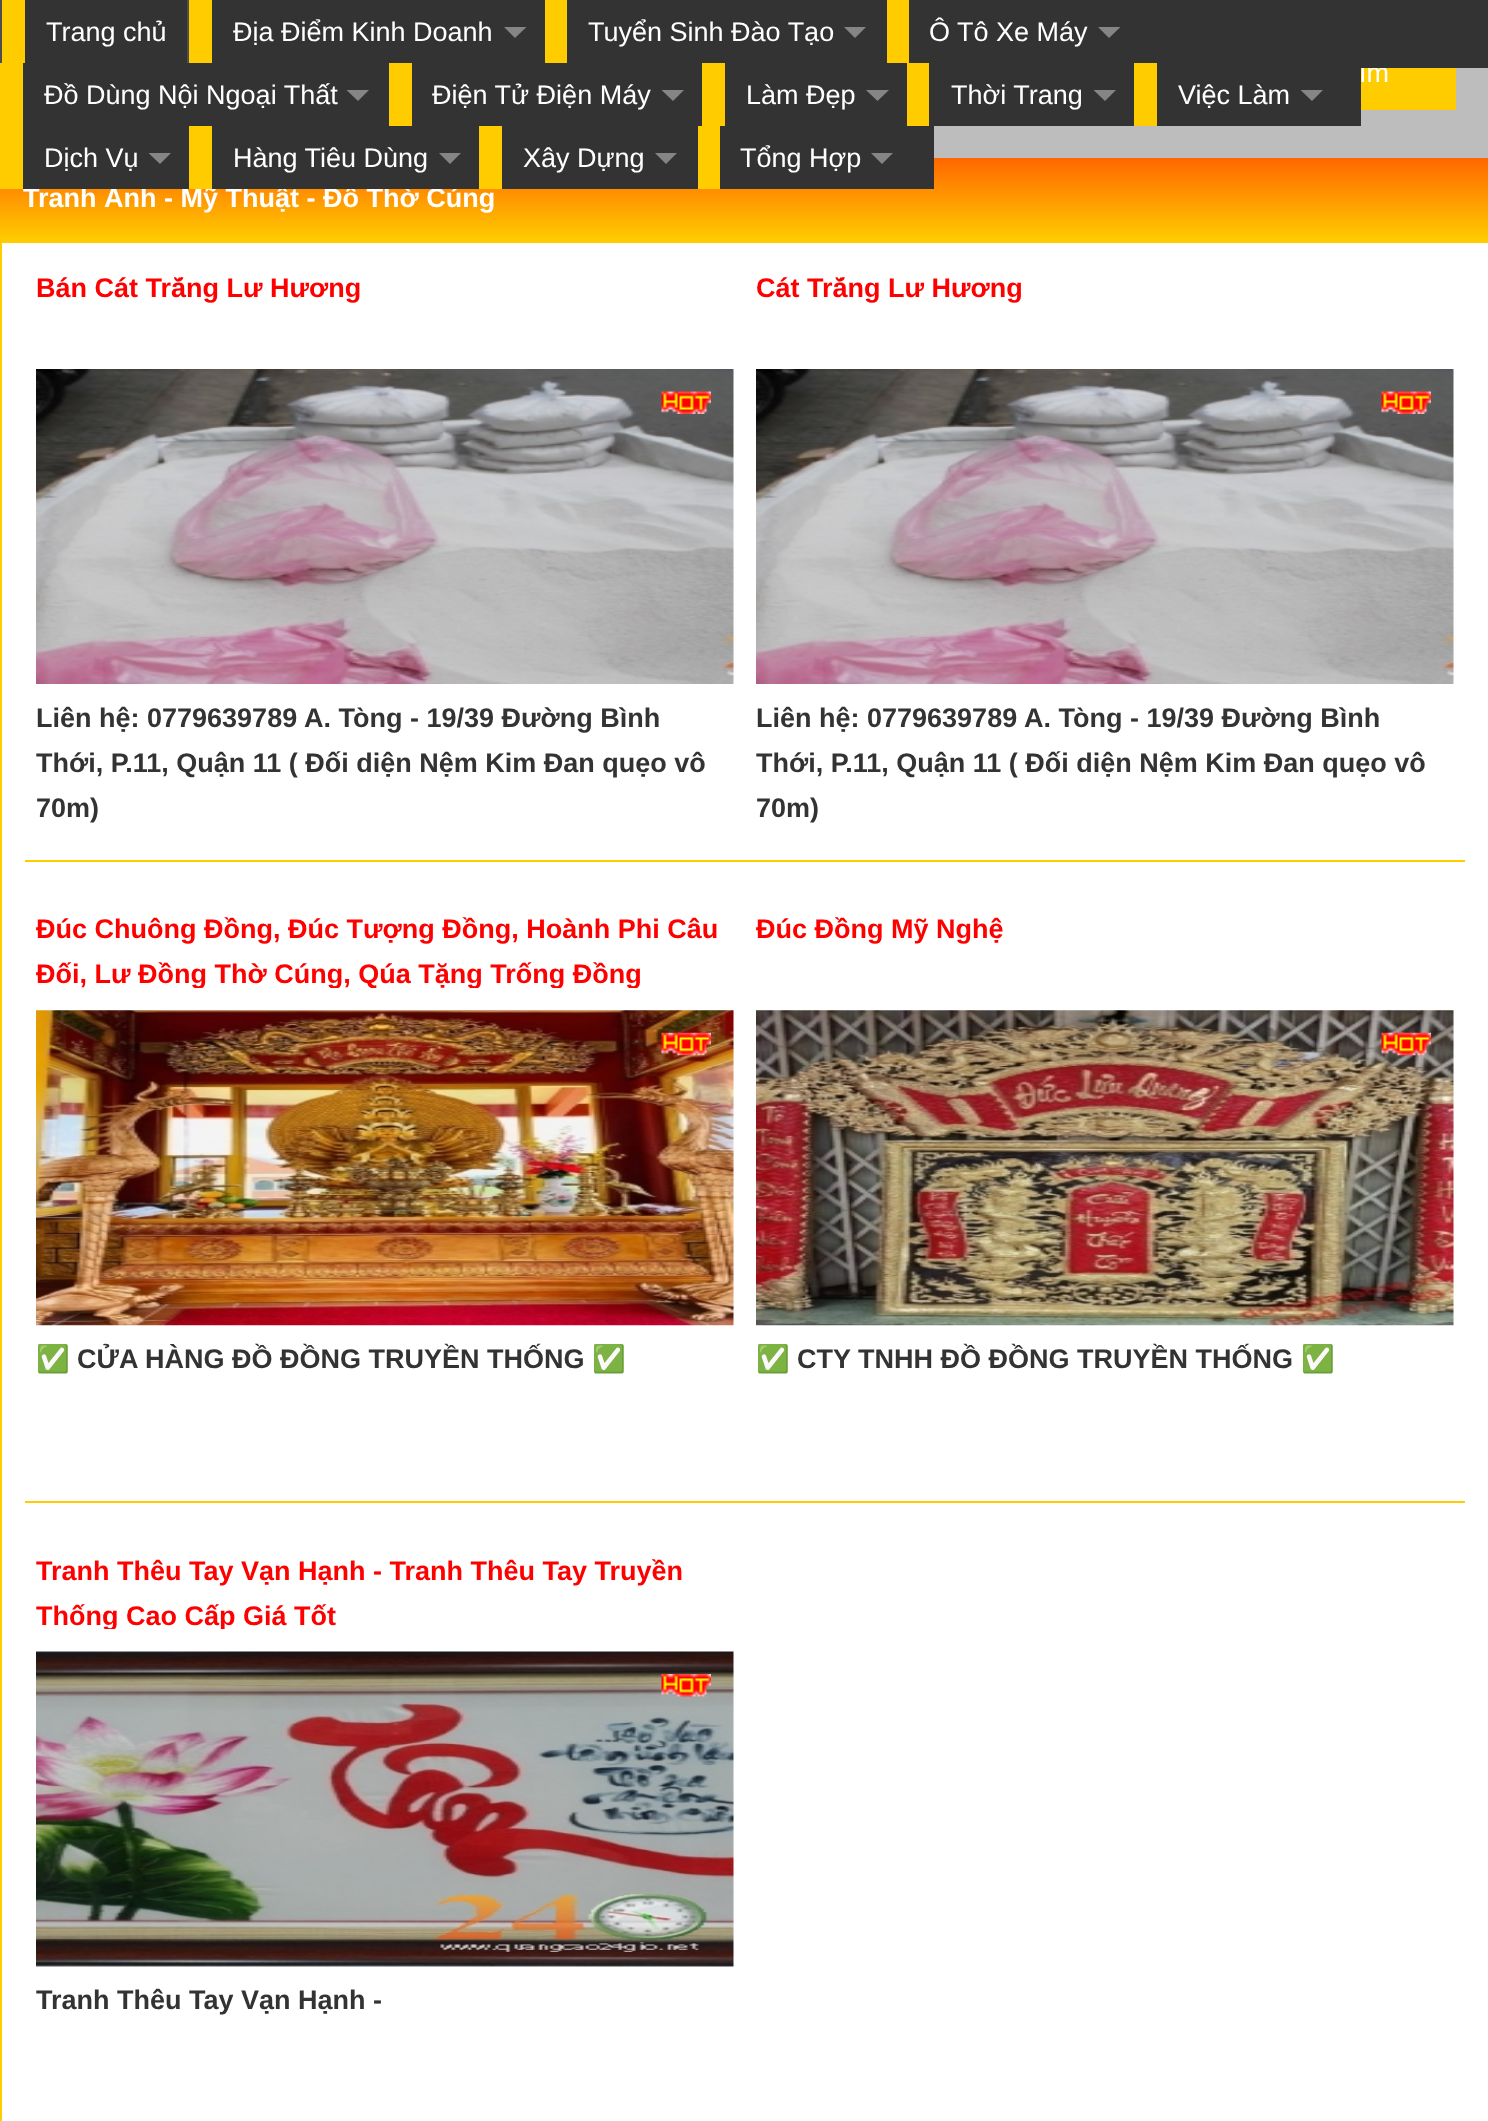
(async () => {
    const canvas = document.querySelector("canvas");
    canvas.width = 1488;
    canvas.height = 2121;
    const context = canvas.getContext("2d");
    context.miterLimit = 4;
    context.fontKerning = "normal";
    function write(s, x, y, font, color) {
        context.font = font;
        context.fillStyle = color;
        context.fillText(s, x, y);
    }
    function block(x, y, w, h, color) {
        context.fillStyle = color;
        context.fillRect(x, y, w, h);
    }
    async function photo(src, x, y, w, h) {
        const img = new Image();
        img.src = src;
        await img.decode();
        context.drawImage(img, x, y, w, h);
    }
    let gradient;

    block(0, 0, 1488, 2121, "rgb(255, 255, 255)");
    block(934, 68, 554, 90, "rgb(189, 189, 189)");
    block(1361, 68, 95, 42, "rgb(255, 204, 0)");
    write("ìm", 1359, 82, "27px Liberation Sans", "rgb(255, 255, 255)");
    block(1159, 0, 329, 68, "rgb(51, 51, 51)");
    block(0, 0, 2, 63, "rgb(78, 78, 78)");
    block(2, 0, 23, 63, "rgb(255, 204, 0)");
    block(25, 0, 162, 63, "rgb(51, 51, 51)");
    write("Trang chủ", 46, 41, "27px Liberation Sans", "rgb(255, 255, 255)");
    block(187, 0, 2, 63, "rgb(78, 78, 78)");
    block(189, 0, 23, 63, "rgb(255, 204, 0)");
    block(212, 0, 333, 63, "rgb(51, 51, 51)");
    write("Địa Điểm Kinh Doanh", 233, 41, "27px Liberation Sans", "rgb(255, 255, 255)");
    context.fillStyle = "rgb(133, 133, 133)";
    context.beginPath();
    context.moveTo(504, 27);
    context.lineTo(526.5, 27);
    context.lineTo(515, 38);
    context.closePath();
    context.fill();
    block(545, 0, 22, 63, "rgb(255, 204, 0)");
    block(567, 0, 320, 63, "rgb(51, 51, 51)");
    write("Tuyển Sinh Đào Tạo", 588, 41, "27px Liberation Sans", "rgb(255, 255, 255)");
    context.fillStyle = "rgb(133, 133, 133)";
    context.beginPath();
    context.moveTo(844, 27);
    context.lineTo(866, 27);
    context.lineTo(855, 38);
    context.closePath();
    context.fill();
    block(887, 0, 22, 63, "rgb(255, 204, 0)");
    block(909, 0, 250, 63, "rgb(51, 51, 51)");
    write("Ô Tô Xe Máy", 929, 41, "27px Liberation Sans", "rgb(255, 255, 255)");
    context.fillStyle = "rgb(133, 133, 133)";
    context.beginPath();
    context.moveTo(1098, 27);
    context.lineTo(1120.5, 27);
    context.lineTo(1109, 38);
    context.closePath();
    context.fill();
    gradient = context.createLinearGradient(745, 157, 745, 241);
    gradient.addColorStop(0, "rgb(255, 102, 0)");
    gradient.addColorStop(1, "rgb(255, 204, 0)");
    context.fillStyle = gradient;
    context.fillRect(0, 158, 1488, 83);
    write("Tranh Ảnh - Mỹ Thuật - Đồ Thờ Cúng", 23, 207, "bold 27px Liberation Sans", "rgb(255, 255, 255)");
    block(0, 63, 23, 126, "rgb(255, 204, 0)");
    block(23, 63, 366, 63, "rgb(51, 51, 51)");
    write("Đồ Dùng Nội Ngoại Thất", 44, 104, "27px Liberation Sans", "rgb(255, 255, 255)");
    context.fillStyle = "rgb(133, 133, 133)";
    context.beginPath();
    context.moveTo(346.5, 90);
    context.lineTo(369, 90);
    context.lineTo(358, 101);
    context.closePath();
    context.fill();
    block(389, 63, 23, 63, "rgb(255, 204, 0)");
    block(412, 63, 290, 63, "rgb(51, 51, 51)");
    write("Điện Tử Điện Máy", 432, 104, "27px Liberation Sans", "rgb(255, 255, 255)");
    context.fillStyle = "rgb(133, 133, 133)";
    context.beginPath();
    context.moveTo(661.5, 90);
    context.lineTo(684, 90);
    context.lineTo(673, 101);
    context.closePath();
    context.fill();
    block(702, 63, 23, 63, "rgb(255, 204, 0)");
    block(725, 63, 182, 63, "rgb(51, 51, 51)");
    write("Làm Đẹp", 746, 104, "27px Liberation Sans", "rgb(255, 255, 255)");
    context.fillStyle = "rgb(133, 133, 133)";
    context.beginPath();
    context.moveTo(866, 90);
    context.lineTo(889, 90);
    context.lineTo(877.5, 101);
    context.closePath();
    context.fill();
    block(907, 63, 22, 63, "rgb(255, 204, 0)");
    block(929, 63, 205, 63, "rgb(51, 51, 51)");
    write("Thời Trang", 951, 104, "27px Liberation Sans", "rgb(255, 255, 255)");
    context.fillStyle = "rgb(133, 133, 133)";
    context.beginPath();
    context.moveTo(1093.5, 90);
    context.lineTo(1116, 90);
    context.lineTo(1105, 101);
    context.closePath();
    context.fill();
    block(1134, 63, 23, 63, "rgb(255, 204, 0)");
    block(1157, 63, 204, 63, "rgb(51, 51, 51)");
    write("Việc Làm", 1178, 104, "27px Liberation Sans", "rgb(255, 255, 255)");
    context.fillStyle = "rgb(133, 133, 133)";
    context.beginPath();
    context.moveTo(1300.5, 90);
    context.lineTo(1323, 90);
    context.lineTo(1312, 101);
    context.closePath();
    context.fill();
    block(23, 126, 166, 63, "rgb(51, 51, 51)");
    write("Dịch Vụ", 44, 167, "27px Liberation Sans", "rgb(255, 255, 255)");
    context.fillStyle = "rgb(133, 133, 133)";
    context.beginPath();
    context.moveTo(148.5, 153);
    context.lineTo(171, 153);
    context.lineTo(160, 164);
    context.closePath();
    context.fill();
    block(189, 126, 23, 63, "rgb(255, 204, 0)");
    block(212, 126, 267, 63, "rgb(51, 51, 51)");
    write("Hàng Tiêu Dùng", 233, 167, "27px Liberation Sans", "rgb(255, 255, 255)");
    context.fillStyle = "rgb(133, 133, 133)";
    context.beginPath();
    context.moveTo(439, 153);
    context.lineTo(461, 153);
    context.lineTo(450, 164);
    context.closePath();
    context.fill();
    block(479, 126, 23, 63, "rgb(255, 204, 0)");
    block(502, 126, 196, 63, "rgb(51, 51, 51)");
    write("Xây Dựng", 523, 167, "27px Liberation Sans", "rgb(255, 255, 255)");
    context.fillStyle = "rgb(133, 133, 133)";
    context.beginPath();
    context.moveTo(655, 153);
    context.lineTo(677, 153);
    context.lineTo(666, 164);
    context.closePath();
    context.fill();
    block(698, 126, 22, 63, "rgb(255, 204, 0)");
    block(720, 126, 214, 63, "rgb(51, 51, 51)");
    write("Tổng Hợp", 740, 167, "27px Liberation Sans", "rgb(255, 255, 255)");
    context.fillStyle = "rgb(133, 133, 133)";
    context.beginPath();
    context.moveTo(871, 153);
    context.lineTo(893, 153);
    context.lineTo(882, 164);
    context.closePath();
    context.fill();
    context.strokeStyle = "rgb(255, 204, 0)";
    context.lineWidth = 2;
    context.strokeRect(1, 242, 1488, 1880);
    block(25, 860, 1440, 2, "rgb(255, 204, 0)");
    write("Bán Cát Trắng Lư Hương", 36, 297, "bold 27px Liberation Sans", "rgb(255, 0, 0)");
    await photo("media/1.png", 36, 369, 698, 315);
    await photo("media/2.png", 661, 391, 50, 23);
    write("Liên hệ: 0779639789", 36, 727, "bold 27px Liberation Sans", "rgb(51, 51, 51)");
    write("A. Tòng - 19/39 Đường Bình", 304, 727, "bold 27px Liberation Sans", "rgb(51, 51, 51)");
    write("Thới, P.11, Quận 11 ( Đối diện Nệm Kim Đan quẹo vô", 36, 772, "bold 27px Liberation Sans", "rgb(51, 51, 51)");
    write("70m)", 36, 817, "bold 27px Liberation Sans", "rgb(51, 51, 51)");
    write("Cát Trắng Lư Hương", 756, 297, "bold 27px Liberation Sans", "rgb(255, 0, 0)");
    await photo("media/3.png", 756, 369, 698, 315);
    await photo("media/2.png", 1381, 391, 50, 23);
    write("Liên hệ: 0779639789", 756, 727, "bold 27px Liberation Sans", "rgb(51, 51, 51)");
    write("A. Tòng - 19/39 Đường Bình", 1024, 727, "bold 27px Liberation Sans", "rgb(51, 51, 51)");
    write("Thới, P.11, Quận 11 ( Đối diện Nệm Kim Đan quẹo vô", 756, 772, "bold 27px Liberation Sans", "rgb(51, 51, 51)");
    write("70m)", 756, 817, "bold 27px Liberation Sans", "rgb(51, 51, 51)");
    block(25, 1501, 1440, 2, "rgb(255, 204, 0)");
    write("Đúc Chuông Đồng, Đúc Tượng Đồng, Hoành Phi Câu", 36, 938, "bold 27px Liberation Sans", "rgb(255, 0, 0)");
    context.save();
    context.beginPath();
    context.rect(36, 907, 698, 81);
    context.clip();
    write("Đối, Lư Đồng Thờ Cúng, Qúa Tặng Trống Đồng", 36, 983, "bold 27px Liberation Sans", "rgb(255, 0, 0)");
    context.restore();
    await photo("media/4.png", 36, 1010, 698, 316);
    await photo("media/5.png", 661, 1032, 50, 24);
    write("✅", 36, 1368, "bold 27px Noto Color Emoji", "rgb(51, 51, 51)");
    write("CỬA HÀNG ĐỒ ĐỒNG TRUYỀN THỐNG", 77, 1368, "bold 27px Liberation Sans", "rgb(51, 51, 51)");
    write("✅", 592, 1368, "bold 27px Noto Color Emoji", "rgb(51, 51, 51)");
    write("Đúc Đồng Mỹ Nghệ", 756, 938, "bold 27px Liberation Sans", "rgb(255, 0, 0)");
    await photo("media/6.png", 756, 1010, 698, 316);
    await photo("media/7.png", 1381, 1032, 50, 24);
    write("✅", 756, 1368, "bold 27px Noto Color Emoji", "rgb(51, 51, 51)");
    write("CTY TNHH ĐỒ ĐỒNG TRUYỀN THỐNG", 797, 1368, "bold 27px Liberation Sans", "rgb(51, 51, 51)");
    write("✅", 1301, 1368, "bold 27px Noto Color Emoji", "rgb(51, 51, 51)");
    write("Tranh Thêu Tay Vạn Hạnh - Tranh Thêu Tay Truyền", 36, 1580, "bold 27px Liberation Sans", "rgb(255, 0, 0)");
    context.save();
    context.beginPath();
    context.rect(36, 1548, 698, 81);
    context.clip();
    write("Thống Cao Cấp Giá Tốt", 36, 1625, "bold 27px Liberation Sans", "rgb(255, 0, 0)");
    context.restore();
    await photo("media/8.png", 36, 1651, 698, 316);
    await photo("media/9.png", 661, 1674, 50, 23);
    write("Tranh Thêu Tay Vạn Hạnh -", 36, 2009, "bold 27px Liberation Sans", "rgb(51, 51, 51)");
})();
